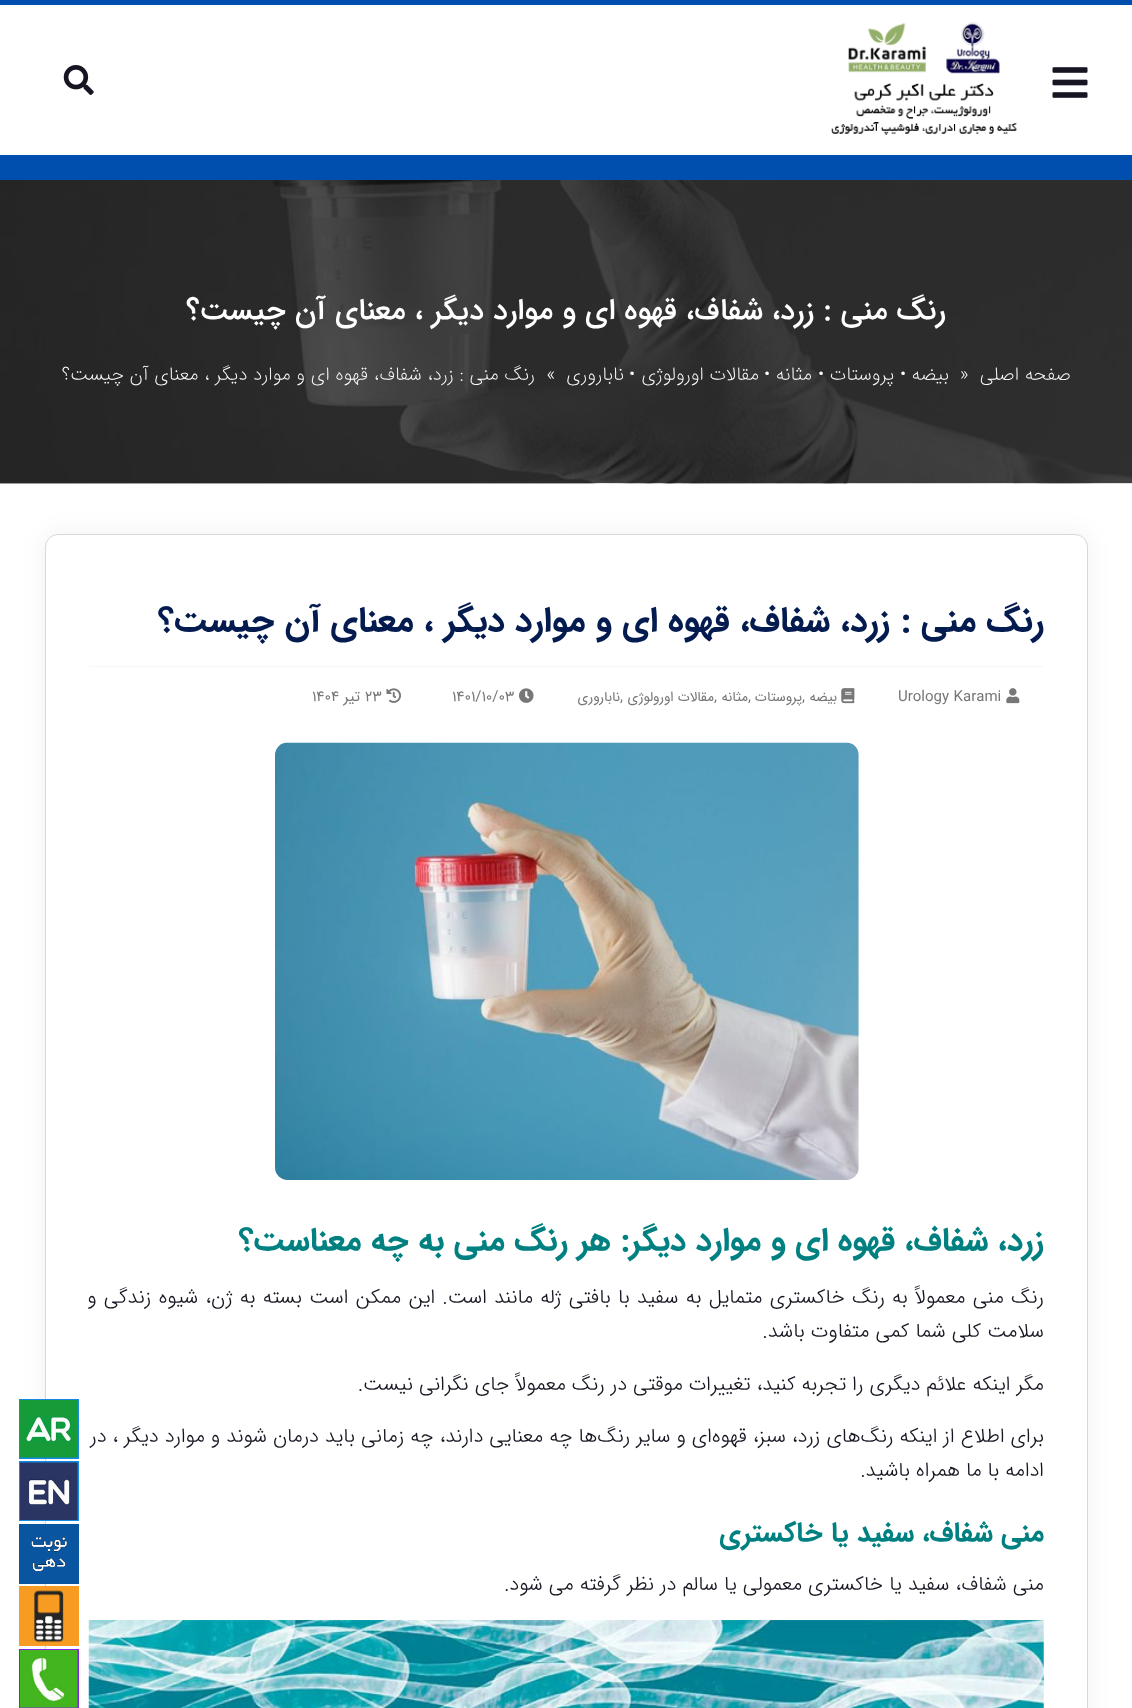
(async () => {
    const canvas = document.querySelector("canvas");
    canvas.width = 1132;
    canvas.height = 1708;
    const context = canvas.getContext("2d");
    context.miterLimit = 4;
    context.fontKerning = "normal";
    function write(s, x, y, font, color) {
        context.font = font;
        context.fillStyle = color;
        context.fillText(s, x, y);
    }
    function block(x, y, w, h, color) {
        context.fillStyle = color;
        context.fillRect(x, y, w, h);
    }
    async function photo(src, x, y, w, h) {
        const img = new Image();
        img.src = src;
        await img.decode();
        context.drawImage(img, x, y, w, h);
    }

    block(0, 0, 1132, 1708, "rgb(255, 255, 255)");
    block(0, 0, 1132, 5, "rgb(0, 79, 175)");
    await photo("media/1.png", 1052, 67, 36, 31);
    await photo("media/2.png", 831, 22, 186, 113);
    await photo("media/3.png", 63, 65, 31, 30);
    block(0, 155, 1132, 25, "rgb(0, 79, 175)");
    await photo("media/4.png", 0, 180, 1132, 304);
    context.direction = "rtl";
    write("رنگ منی : زرد، شفاف، قهوه ای و موارد دیگر ، معنای آن چیست؟", 946, 319, "500 30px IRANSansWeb", "rgb(255, 255, 255)");
    write("صفحه اصلی", 1071, 380, "200 18.75px IRANSansWeb", "rgb(255, 255, 255)");
    context.direction = "ltr";
    write("»", 960, 380, "200 18.75px IRANSansWeb", "rgb(255, 255, 255)");
    context.direction = "rtl";
    write("بیضه", 949, 380, "200 18.75px IRANSansWeb", "rgb(255, 255, 255)");
    context.direction = "ltr";
    write("•", 900, 380, "200 18.75px IRANSansWeb", "rgb(255, 255, 255)");
    context.direction = "rtl";
    write("پروستات", 894, 380, "200 18.75px IRANSansWeb", "rgb(255, 255, 255)");
    context.direction = "ltr";
    write("•", 818, 380, "200 18.75px IRANSansWeb", "rgb(255, 255, 255)");
    context.direction = "rtl";
    write("مثانه", 812, 380, "200 18.75px IRANSansWeb", "rgb(255, 255, 255)");
    context.direction = "ltr";
    write("•", 764, 380, "200 18.75px IRANSansWeb", "rgb(255, 255, 255)");
    context.direction = "rtl";
    write("مقالات اورولوژی", 759, 380, "200 18.75px IRANSansWeb", "rgb(255, 255, 255)");
    context.direction = "ltr";
    write("•", 629, 380, "200 18.75px IRANSansWeb", "rgb(255, 255, 255)");
    context.direction = "rtl";
    write("ناباروری", 624, 380, "200 18.75px IRANSansWeb", "rgb(255, 255, 255)");
    write("»  رنگ منی : زرد، شفاف، قهوه ای و موارد دیگر ، معنای آن چیست؟", 555, 380, "200 18.75px IRANSansWeb", "rgb(255, 255, 255)");
    context.fillStyle = "rgba(0, 0, 0, 0.06)";
    context.filter = "blur(12.5px)";
    context.beginPath();
    context.roundRect(45, 534, 1043, 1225, 13);
    context.fill();
    context.filter = "none";
    context.fillStyle = "rgb(255, 255, 255)";
    context.beginPath();
    context.roundRect(45.5, 534.5, 1042, 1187, 12.5);
    context.fill();
    context.strokeStyle = "rgb(212, 216, 221)";
    context.stroke();
    block(89, 666, 955, 1, "rgb(244, 247, 252)");
    write("رنگ منی : زرد، شفاف، قهوه ای و موارد دیگر ، معنای آن چیست؟", 1044, 631, "bold 35px IRANSansWeb", "rgb(3, 27, 78)");
    await photo("media/5.png", 1006, 688, 14, 16);
    context.direction = "ltr";
    write("Urology Karami", 898, 701, "15px IRANSansWeb", "rgb(119, 119, 119)");
    await photo("media/6.png", 841, 688, 14, 16);
    context.direction = "rtl";
    write("بیضه", 837, 701, "13.75px IRANSansWeb", "rgb(119, 119, 119)");
    context.direction = "ltr";
    write(",", 802, 701, "15px IRANSansWeb", "rgb(119, 119, 119)");
    context.direction = "rtl";
    write("پروستات", 802, 701, "13.75px IRANSansWeb", "rgb(119, 119, 119)");
    context.direction = "ltr";
    write(",", 748, 701, "15px IRANSansWeb", "rgb(119, 119, 119)");
    context.direction = "rtl";
    write("مثانه", 748, 701, "13.75px IRANSansWeb", "rgb(119, 119, 119)");
    context.direction = "ltr";
    write(",", 714, 701, "15px IRANSansWeb", "rgb(119, 119, 119)");
    context.direction = "rtl";
    write("مقالات اورولوژی", 714, 701, "13.75px IRANSansWeb", "rgb(119, 119, 119)");
    context.direction = "ltr";
    write(",", 620, 701, "15px IRANSansWeb", "rgb(119, 119, 119)");
    context.direction = "rtl";
    write("ناباروری", 620, 701, "13.75px IRANSansWeb", "rgb(119, 119, 119)");
    await photo("media/7.png", 519, 688, 15, 15);
    context.direction = "ltr";
    write("۱۴۰۱/۱۰/۰۳", 452, 701, "15px IRANSansWeb", "rgb(119, 119, 119)");
    await photo("media/8.png", 386, 688, 15, 15);
    write("۲۳", 365, 701, "15px IRANSansWeb", "rgb(119, 119, 119)");
    context.direction = "rtl";
    write("تیر", 360, 701, "15px IRANSansWeb", "rgb(119, 119, 119)");
    context.direction = "ltr";
    write("۱۴۰۴", 312, 701, "15px IRANSansWeb", "rgb(119, 119, 119)");
    await photo("media/9.png", 275, 742, 584, 438);
    context.direction = "rtl";
    write("زرد، شفاف، قهوه ای و موارد دیگر: هر رنگ منی به چه معناست؟", 1044, 1250, "bold 32.5px IRANSansWeb", "rgb(0, 128, 128)");
    context.wordSpacing = "1.2px";
    write("رنگ منی معمولاً به رنگ خاکستری متمایل به سفید با بافتی ژله مانند است. این ممکن است بسته به ژن، شیوه زندگی و", 1044, 1303, "300 20px IRANSansWeb", "rgb(24, 21, 34)");
    context.wordSpacing = "0px";
    write("سلامت کلی شما کمی متفاوت باشد.", 1044, 1337, "300 20px IRANSansWeb", "rgb(24, 21, 34)");
    write("مگر اینکه علائم دیگری را تجربه کنید، تغییرات موقتی در رنگ معمولاً جای نگرانی نیست.", 1044, 1390, "300 20px IRANSansWeb", "rgb(24, 21, 34)");
    write("برای اطلاع از اینکه رنگ‌های زرد، سبز، قهوه‌ای و سایر رنگ‌ها چه معنایی دارند، چه زمانی باید درمان شوند و موارد دیگر ، در", 1044, 1442, "300 20px IRANSansWeb", "rgb(24, 21, 34)");
    write("ادامه با ما همراه باشید.", 1044, 1476, "300 20px IRANSansWeb", "rgb(24, 21, 34)");
    write("منی شفاف، سفید یا خاکستری", 1044, 1541, "bold 27.5px IRANSansWeb", "rgb(0, 128, 128)");
    write("منی شفاف، سفید یا خاکستری معمولی یا سالم در نظر گرفته می شود.", 1044, 1590, "300 20px IRANSansWeb", "rgb(24, 21, 34)");
    await photo("media/10.png", 88, 1620, 956, 88);
    block(19, 1399, 60, 60, "rgb(18, 139, 224)");
    await photo("media/11.png", 20, 1400, 58, 58);
    block(19, 1461, 60, 60, "rgb(18, 139, 224)");
    await photo("media/12.png", 20, 1462, 58, 58);
    block(19, 1524, 60, 60, "rgb(9, 85, 160)");
    await photo("media/13.png", 31, 1537, 37, 35);
    block(19, 1586, 60, 60, "rgb(247, 155, 34)");
    await photo("media/14.png", 34, 1590, 30, 53);
    block(19, 1649, 60, 59, "rgb(130, 36, 227)");
    await photo("media/15.png", 20, 1650, 58, 58);
})();
